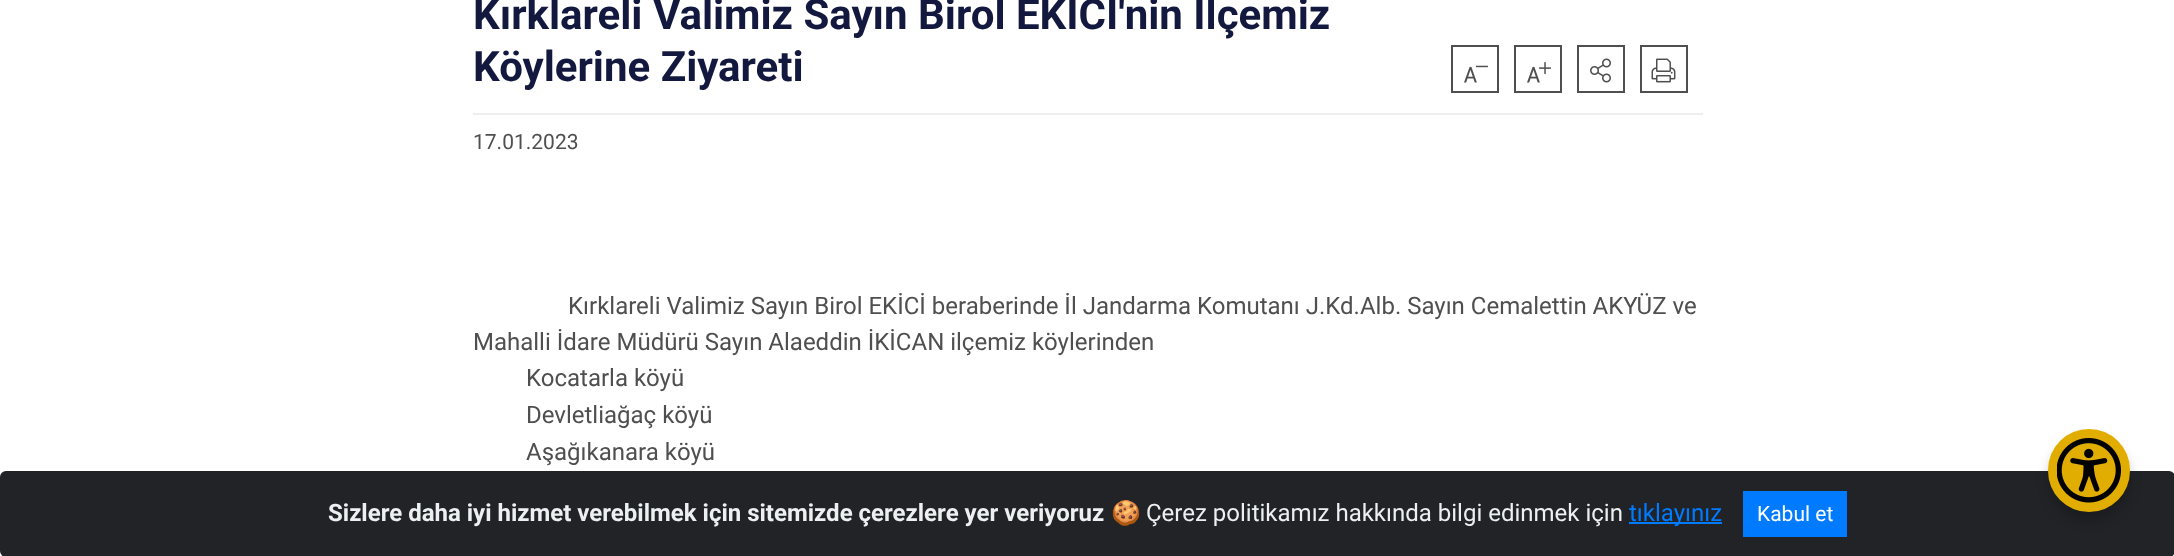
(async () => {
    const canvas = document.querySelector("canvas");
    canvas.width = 2174;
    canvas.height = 556;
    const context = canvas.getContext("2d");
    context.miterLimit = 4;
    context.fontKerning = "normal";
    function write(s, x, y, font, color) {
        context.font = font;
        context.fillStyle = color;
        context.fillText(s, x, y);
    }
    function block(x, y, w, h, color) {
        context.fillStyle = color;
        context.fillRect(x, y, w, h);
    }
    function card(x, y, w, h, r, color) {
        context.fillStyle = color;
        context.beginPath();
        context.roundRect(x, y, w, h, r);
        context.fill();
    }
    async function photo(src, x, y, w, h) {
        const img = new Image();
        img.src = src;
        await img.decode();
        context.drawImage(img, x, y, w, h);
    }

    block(0, 0, 2174, 556, "rgb(255, 255, 255)");
    block(473, 113, 1230, 2, "rgb(238, 238, 238)");
    write("Kırklareli Valimiz Sayın Birol EKİCİ'nin İlçemiz", 473, 29, "bold 42px Roboto", "rgb(19, 24, 62)");
    write("Köylerine Ziyareti", 473, 81, "bold 42px Roboto", "rgb(19, 24, 62)");
    context.strokeStyle = "rgb(79, 79, 79)";
    context.lineWidth = 2;
    context.strokeRect(1452, 46, 46, 46);
    await photo("media/1.png", 1464, 65, 24, 18);
    context.strokeRect(1515, 46, 46, 46);
    await photo("media/2.png", 1527, 62, 24, 21);
    context.strokeRect(1578, 46, 46, 46);
    await photo("media/3.png", 1590, 58, 21, 25);
    context.strokeRect(1641, 46, 46, 46);
    await photo("media/4.png", 1651, 58, 25, 25);
    write("17.01.2023", 473, 149, "21px Roboto", "rgb(79, 79, 79)");
    write("Kırklareli Valimiz Sayın Birol EKİCİ beraberinde İl Jandarma Komutanı J.Kd.Alb. Sayın Cemalettin AKYÜZ ve", 568, 314, "24px Roboto", "rgb(79, 79, 79)");
    write("Mahalli İdare Müdürü Sayın Alaeddin İKİCAN ilçemiz köylerinden", 473, 350, "24px Roboto", "rgb(79, 79, 79)");
    write("Kocatarla köyü", 526, 386, "24px Roboto", "rgb(79, 79, 79)");
    write("Devletliağaç köyü", 526, 423, "24px Roboto", "rgb(79, 79, 79)");
    write("Aşağıkanara köyü", 526, 460, "24px Roboto", "rgb(79, 79, 79)");
    card(0, 471, 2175, 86, 6, "rgb(33, 35, 39)");
    write("Sizlere daha iyi hizmet verebilmek için sitemizde çerezlere yer veriyoruz", 328, 521, "bold 24px Roboto", "rgb(236, 240, 241)");
    write("🍪", 1111, 521, "24px Noto Color Emoji", "rgb(236, 240, 241)");
    write("Çerez politikamız hakkında bilgi edinmek için", 1146, 521, "24px Roboto", "rgb(236, 240, 241)");
    block(1629, 522, 93, 2, "rgb(0, 123, 255)");
    write("tıklayınız", 1629, 521, "24px Roboto", "rgb(0, 123, 255)");
    block(1743, 491, 104, 46, "rgb(0, 123, 255)");
    write("Kabul et", 1757, 521, "21px Roboto", "rgb(255, 255, 255)");
    context.fillStyle = "rgba(0, 0, 0, 0.2)";
    context.filter = "blur(6px)";
    context.beginPath();
    context.roundRect(2048, 438, 82, 83, 41);
    context.fill();
    context.filter = "none";
    card(2048, 429, 82, 83, 41, "rgb(225, 173, 1)");
    await photo("media/5.png", 2057, 438, 64, 65);
})();
